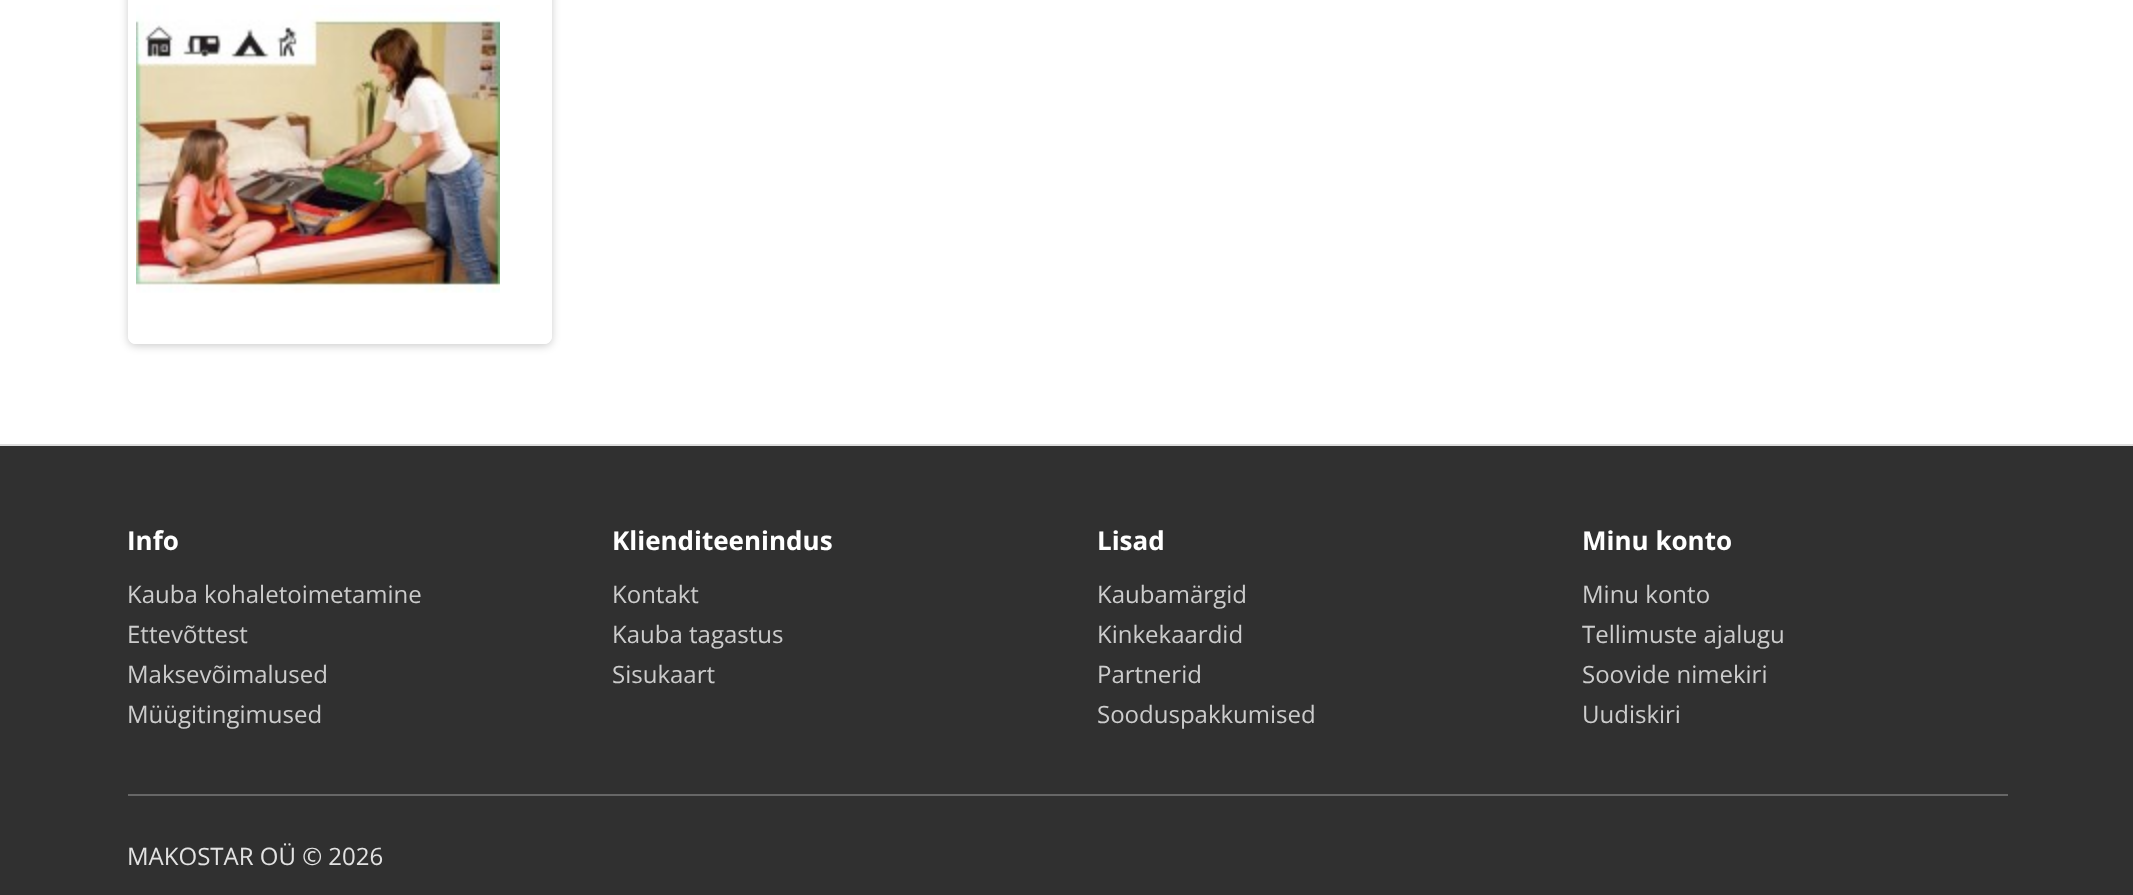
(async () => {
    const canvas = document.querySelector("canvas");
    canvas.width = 2133;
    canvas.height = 895;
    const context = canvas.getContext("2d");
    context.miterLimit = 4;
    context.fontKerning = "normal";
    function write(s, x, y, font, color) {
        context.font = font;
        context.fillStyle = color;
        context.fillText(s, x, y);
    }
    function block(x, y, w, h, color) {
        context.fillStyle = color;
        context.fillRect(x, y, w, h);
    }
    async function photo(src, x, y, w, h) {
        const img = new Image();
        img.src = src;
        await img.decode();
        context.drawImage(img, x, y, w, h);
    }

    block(0, 0, 2133, 895, "rgb(255, 255, 255)");
    context.save();
    context.beginPath();
    context.moveTo(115, 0);
    context.lineTo(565, 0);
    context.lineTo(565, 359);
    context.lineTo(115, 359);
    context.closePath();
    context.moveTo(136, -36);
    context.lineTo(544, -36);
    context.bezierCurveTo(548.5, -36, 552, -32.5, 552, -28);
    context.lineTo(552, 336);
    context.bezierCurveTo(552, 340.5, 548.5, 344, 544, 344);
    context.lineTo(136, 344);
    context.bezierCurveTo(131.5, 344, 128, 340.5, 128, 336);
    context.lineTo(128, -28);
    context.bezierCurveTo(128, -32.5, 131.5, -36, 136, -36);
    context.closePath();
    context.clip("evenodd");
    context.fillStyle = "rgba(0, 0, 0, 0.2)";
    context.filter = "blur(4px)";
    context.beginPath();
    context.roundRect(128, -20, 424, 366, 8);
    context.fill();
    context.filter = "none";
    context.restore();
    context.beginPath();
    context.roundRect(132, -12, 416, 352, 4);
    context.strokeStyle = "rgb(255, 255, 255)";
    context.lineWidth = 8;
    context.stroke();
    await photo("media/1.png", 136, 5, 364, 288);
    block(0, 446, 2133, 449, "rgb(48, 48, 48)");
    block(0, 444, 2133, 2, "rgb(221, 221, 221)");
    write("Info", 127, 550, "bold 26px Open Sans", "rgb(255, 255, 255)");
    write("Kauba kohaletoimetamine", 127, 603, "24px Open Sans", "rgb(204, 204, 204)");
    write("Ettevõttest", 127, 643, "24px Open Sans", "rgb(204, 204, 204)");
    write("Maksevõimalused", 127, 683, "24px Open Sans", "rgb(204, 204, 204)");
    write("Müügitingimused", 127, 723, "24px Open Sans", "rgb(204, 204, 204)");
    write("Klienditeenindus", 612, 550, "bold 26px Open Sans", "rgb(255, 255, 255)");
    write("Kontakt", 612, 603, "24px Open Sans", "rgb(204, 204, 204)");
    write("Kauba tagastus", 612, 643, "24px Open Sans", "rgb(204, 204, 204)");
    write("Sisukaart", 612, 683, "24px Open Sans", "rgb(204, 204, 204)");
    write("Lisad", 1097, 550, "bold 26px Open Sans", "rgb(255, 255, 255)");
    write("Kaubamärgid", 1097, 603, "24px Open Sans", "rgb(204, 204, 204)");
    write("Kinkekaardid", 1097, 643, "24px Open Sans", "rgb(204, 204, 204)");
    write("Partnerid", 1097, 683, "24px Open Sans", "rgb(204, 204, 204)");
    write("Sooduspakkumised", 1097, 723, "24px Open Sans", "rgb(204, 204, 204)");
    write("Minu konto", 1582, 550, "bold 26px Open Sans", "rgb(255, 255, 255)");
    write("Minu konto", 1582, 603, "24px Open Sans", "rgb(204, 204, 204)");
    write("Tellimuste ajalugu", 1582, 643, "24px Open Sans", "rgb(204, 204, 204)");
    write("Soovide nimekiri", 1582, 683, "24px Open Sans", "rgb(204, 204, 204)");
    write("Uudiskiri", 1582, 723, "24px Open Sans", "rgb(204, 204, 204)");
    block(128, 794, 1880, 2, "rgb(102, 102, 102)");
    write("MAKOSTAR OÜ © 2026", 127, 865, "24px Open Sans", "rgb(226, 226, 226)");
})();
